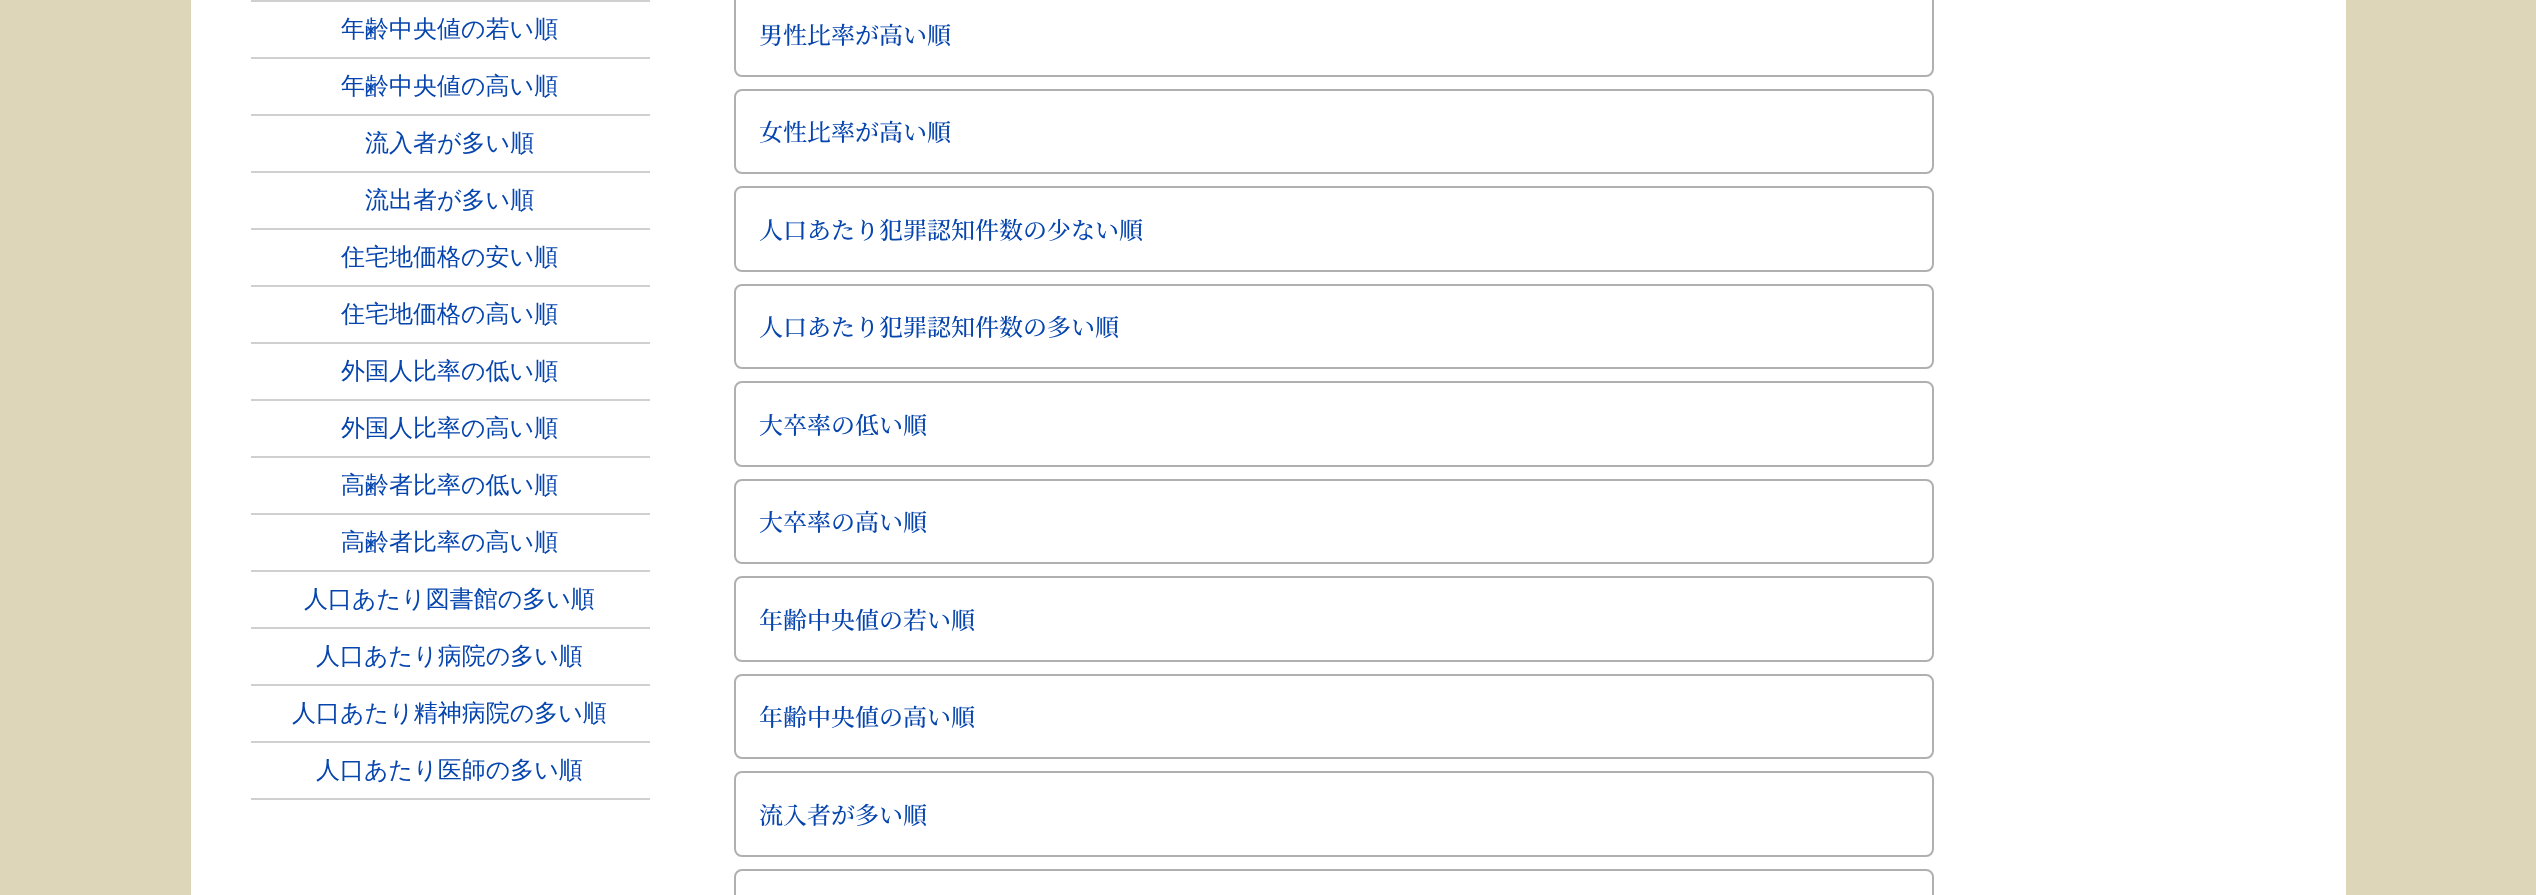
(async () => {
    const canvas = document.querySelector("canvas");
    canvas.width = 2536;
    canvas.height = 895;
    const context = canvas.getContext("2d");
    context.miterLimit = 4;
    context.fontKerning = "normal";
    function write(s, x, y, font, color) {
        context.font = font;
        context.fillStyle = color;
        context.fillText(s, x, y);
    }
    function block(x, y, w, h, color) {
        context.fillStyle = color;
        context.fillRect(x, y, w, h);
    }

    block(0, 0, 2536, 895, "rgb(221, 214, 185)");
    block(191, 0, 2155, 895, "rgb(255, 255, 255)");
    block(251, 0, 399, 2, "rgb(208, 208, 208)");
    block(251, 57, 399, 2, "rgb(208, 208, 208)");
    write("年齢中央値の若い順", 341, 37, "500 24px WenQuanYi Zen Hei", "rgb(6, 69, 173)");
    block(251, 114, 399, 2, "rgb(208, 208, 208)");
    write("年齢中央値の高い順", 341, 94, "500 24px WenQuanYi Zen Hei", "rgb(6, 69, 173)");
    block(251, 171, 399, 2, "rgb(208, 208, 208)");
    write("流入者が多い順", 365, 151, "500 24px WenQuanYi Zen Hei", "rgb(6, 69, 173)");
    block(251, 228, 399, 2, "rgb(208, 208, 208)");
    write("流出者が多い順", 365, 208, "500 24px WenQuanYi Zen Hei", "rgb(6, 69, 173)");
    block(251, 285, 399, 2, "rgb(208, 208, 208)");
    write("住宅地価格の安い順", 341, 265, "500 24px WenQuanYi Zen Hei", "rgb(6, 69, 173)");
    block(251, 342, 399, 2, "rgb(208, 208, 208)");
    write("住宅地価格の高い順", 341, 322, "500 24px WenQuanYi Zen Hei", "rgb(6, 69, 173)");
    block(251, 399, 399, 2, "rgb(208, 208, 208)");
    write("外国人比率の低い順", 341, 379, "500 24px WenQuanYi Zen Hei", "rgb(6, 69, 173)");
    block(251, 456, 399, 2, "rgb(208, 208, 208)");
    write("外国人比率の高い順", 341, 436, "500 24px WenQuanYi Zen Hei", "rgb(6, 69, 173)");
    block(251, 513, 399, 2, "rgb(208, 208, 208)");
    write("高齢者比率の低い順", 341, 493, "500 24px WenQuanYi Zen Hei", "rgb(6, 69, 173)");
    block(251, 570, 399, 2, "rgb(208, 208, 208)");
    write("高齢者比率の高い順", 341, 550, "500 24px WenQuanYi Zen Hei", "rgb(6, 69, 173)");
    block(251, 627, 399, 2, "rgb(208, 208, 208)");
    write("人口あたり図書館の多い順", 304, 607, "500 24px WenQuanYi Zen Hei", "rgb(6, 69, 173)");
    block(251, 684, 399, 2, "rgb(208, 208, 208)");
    write("人口あたり病院の多い順", 316, 664, "500 24px WenQuanYi Zen Hei", "rgb(6, 69, 173)");
    block(251, 741, 399, 2, "rgb(208, 208, 208)");
    write("人口あたり精神病院の多い順", 292, 721, "500 24px WenQuanYi Zen Hei", "rgb(6, 69, 173)");
    block(251, 798, 399, 2, "rgb(208, 208, 208)");
    write("人口あたり医師の多い順", 316, 778, "500 24px WenQuanYi Zen Hei", "rgb(6, 69, 173)");
    context.beginPath();
    context.roundRect(735, -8, 1198, 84, 7);
    context.strokeStyle = "rgb(176, 176, 176)";
    context.lineWidth = 2;
    context.stroke();
    write("男性比率が高い順", 759, 44, "200 24px Noto Serif JP", "rgb(6, 69, 173)");
    context.beginPath();
    context.roundRect(735, 90, 1198, 83, 7);
    context.stroke();
    write("女性比率が高い順", 759, 141, "200 24px Noto Serif JP", "rgb(6, 69, 173)");
    context.beginPath();
    context.roundRect(735, 187, 1198, 84, 7);
    context.stroke();
    write("人口あたり犯罪認知件数の少ない順", 759, 239, "200 24px Noto Serif JP", "rgb(6, 69, 173)");
    context.beginPath();
    context.roundRect(735, 285, 1198, 83, 7);
    context.stroke();
    write("人口あたり犯罪認知件数の多い順", 759, 336, "200 24px Noto Serif JP", "rgb(6, 69, 173)");
    context.beginPath();
    context.roundRect(735, 382, 1198, 84, 7);
    context.stroke();
    write("大卒率の低い順", 759, 434, "200 24px Noto Serif JP", "rgb(6, 69, 173)");
    context.beginPath();
    context.roundRect(735, 480, 1198, 83, 7);
    context.stroke();
    write("大卒率の高い順", 759, 531, "200 24px Noto Serif JP", "rgb(6, 69, 173)");
    context.beginPath();
    context.roundRect(735, 577, 1198, 84, 7);
    context.stroke();
    write("年齢中央値の若い順", 759, 629, "200 24px Noto Serif JP", "rgb(6, 69, 173)");
    context.beginPath();
    context.roundRect(735, 675, 1198, 83, 7);
    context.stroke();
    write("年齢中央値の高い順", 759, 726, "200 24px Noto Serif JP", "rgb(6, 69, 173)");
    context.beginPath();
    context.roundRect(735, 772, 1198, 84, 7);
    context.stroke();
    write("流入者が多い順", 759, 824, "200 24px Noto Serif JP", "rgb(6, 69, 173)");
    context.beginPath();
    context.roundRect(735, 870, 1198, 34, 7);
    context.stroke();
})();
